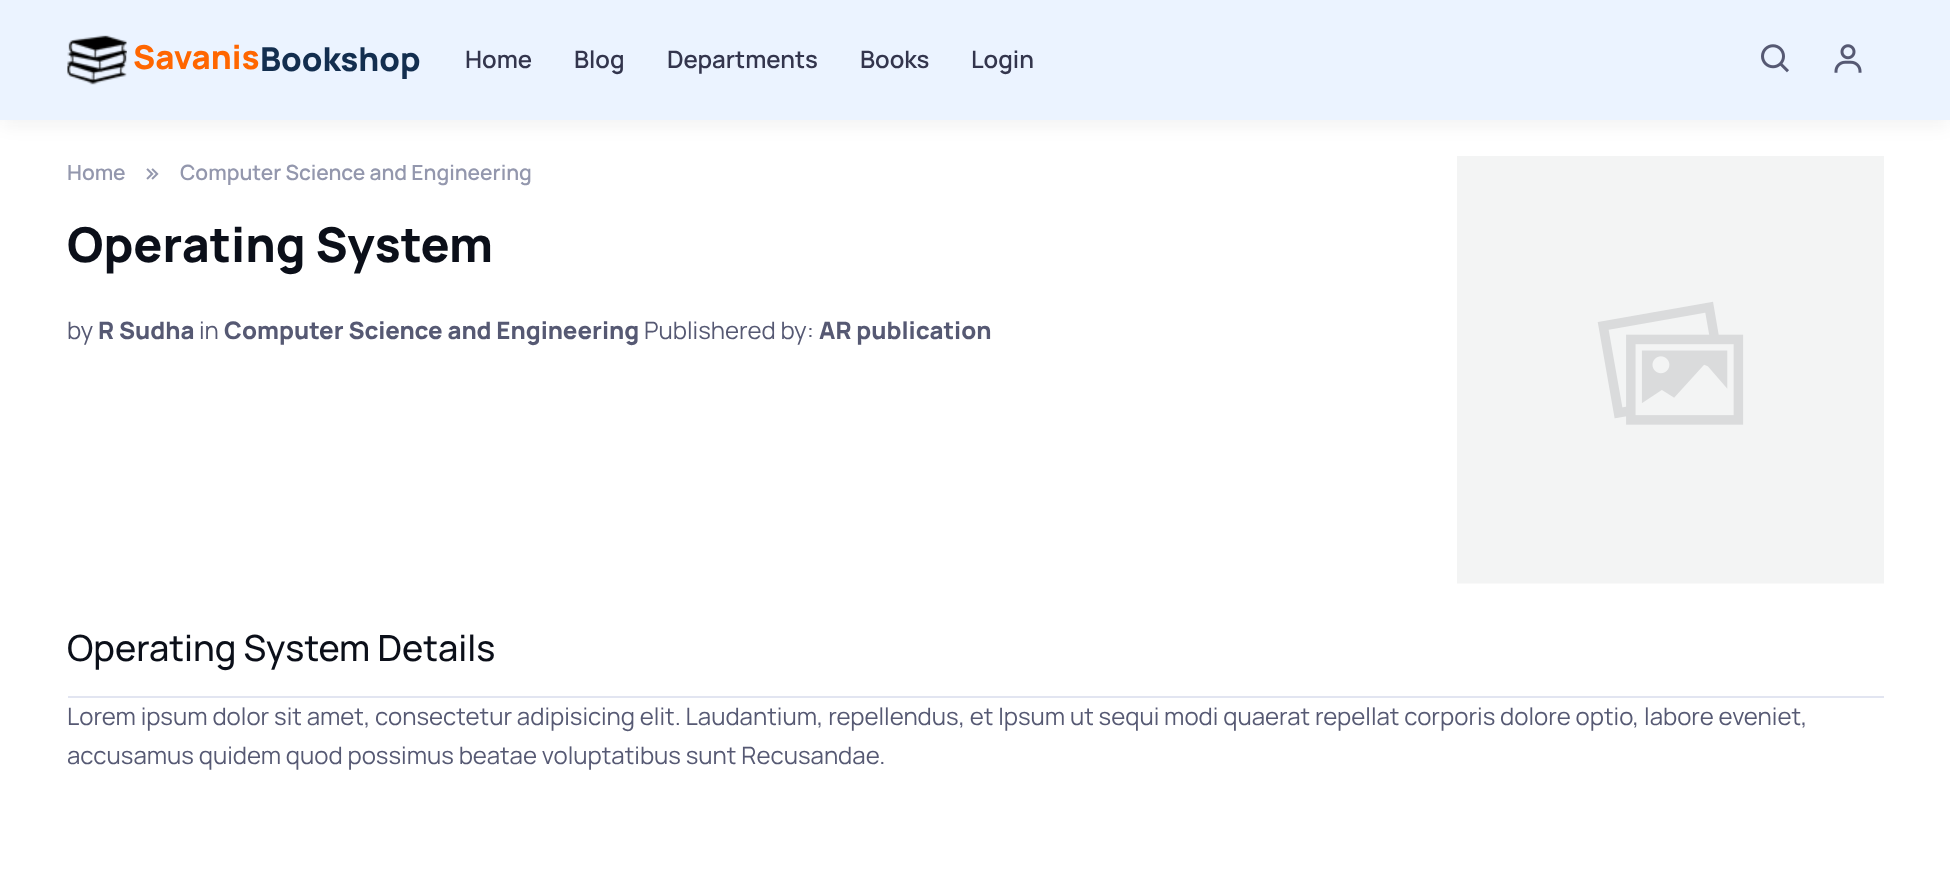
(async () => {
    const canvas = document.querySelector("canvas");
    canvas.width = 1950;
    canvas.height = 895;
    const context = canvas.getContext("2d");
    context.miterLimit = 4;
    context.fontKerning = "normal";
    function write(s, x, y, font, color) {
        context.font = font;
        context.fillStyle = color;
        context.fillText(s, x, y);
    }
    function block(x, y, w, h, color) {
        context.fillStyle = color;
        context.fillRect(x, y, w, h);
    }
    async function photo(src, x, y, w, h) {
        const img = new Image();
        img.src = src;
        await img.decode();
        context.drawImage(img, x, y, w, h);
    }

    block(0, 0, 1950, 895, "rgb(255, 255, 255)");
    context.fillStyle = "rgba(11, 15, 25, 0.06)";
    context.filter = "blur(9px)";
    context.beginPath();
    context.rect(2, 8, 1947, 117);
    context.fill();
    context.filter = "none";
    block(0, 0, 1950, 120, "rgb(235, 243, 255)");
    await photo("media/1.png", 67, 35, 60, 50);
    write("Savanis", 133, 69, "800 33px Manrope", "rgb(255, 102, 0)");
    write("Bookshop", 260, 71, "800 33px Manrope", "rgb(19, 46, 79)");
    write("Home", 465, 68, "600 24px Manrope", "rgb(51, 53, 77)");
    write("Blog", 574, 68, "600 24px Manrope", "rgb(51, 53, 77)");
    write("Departments", 667, 68, "600 24px Manrope", "rgb(51, 53, 77)");
    write("Books", 860, 68, "600 24px Manrope", "rgb(51, 53, 77)");
    write("Login", 971, 68, "600 24px Manrope", "rgb(51, 53, 77)");
    await photo("media/2.png", 1761, 44, 28, 29);
    await photo("media/3.png", 1834, 44, 28, 29);
    write("Home", 67, 180, "600 21px Manrope", "rgb(147, 151, 173)");
    await photo("media/4.png", 146, 168, 13, 12);
    write("Computer Science and Engineering", 180, 180, "600 21px Manrope", "rgb(147, 151, 173)");
    write("Operating System", 67, 262, "800 48px Manrope", "rgb(11, 15, 25)");
    write("by", 67, 339, "24px Manrope", "rgb(86, 89, 115)");
    write("R Sudha", 98, 339, "800 24px Manrope", "rgb(86, 89, 115)");
    write("in", 199, 339, "24px Manrope", "rgb(86, 89, 115)");
    write("Computer Science and Engineering", 224, 339, "800 24px Manrope", "rgb(86, 89, 115)");
    write("Publishered by:", 644, 339, "24px Manrope", "rgb(86, 89, 115)");
    write("AR publication", 819, 339, "800 24px Manrope", "rgb(86, 89, 115)");
    await photo("media/5.png", 1457, 156, 427, 428);
    write("Operating System Details", 67, 661, "500 36px Manrope", "rgb(11, 15, 25)");
    block(68, 696, 1816, 2, "rgb(226, 229, 241)");
    write("Lorem ipsum dolor sit amet, consectetur adipisicing elit. Laudantium, repellendus, et Ipsum ut sequi modi quaerat repellat corporis dolore optio, labore eveniet,", 67, 725, "24px Manrope", "rgb(86, 89, 115)");
    write("accusamus quidem quod possimus beatae voluptatibus sunt Recusandae.", 67, 764, "24px Manrope", "rgb(86, 89, 115)");
})();
